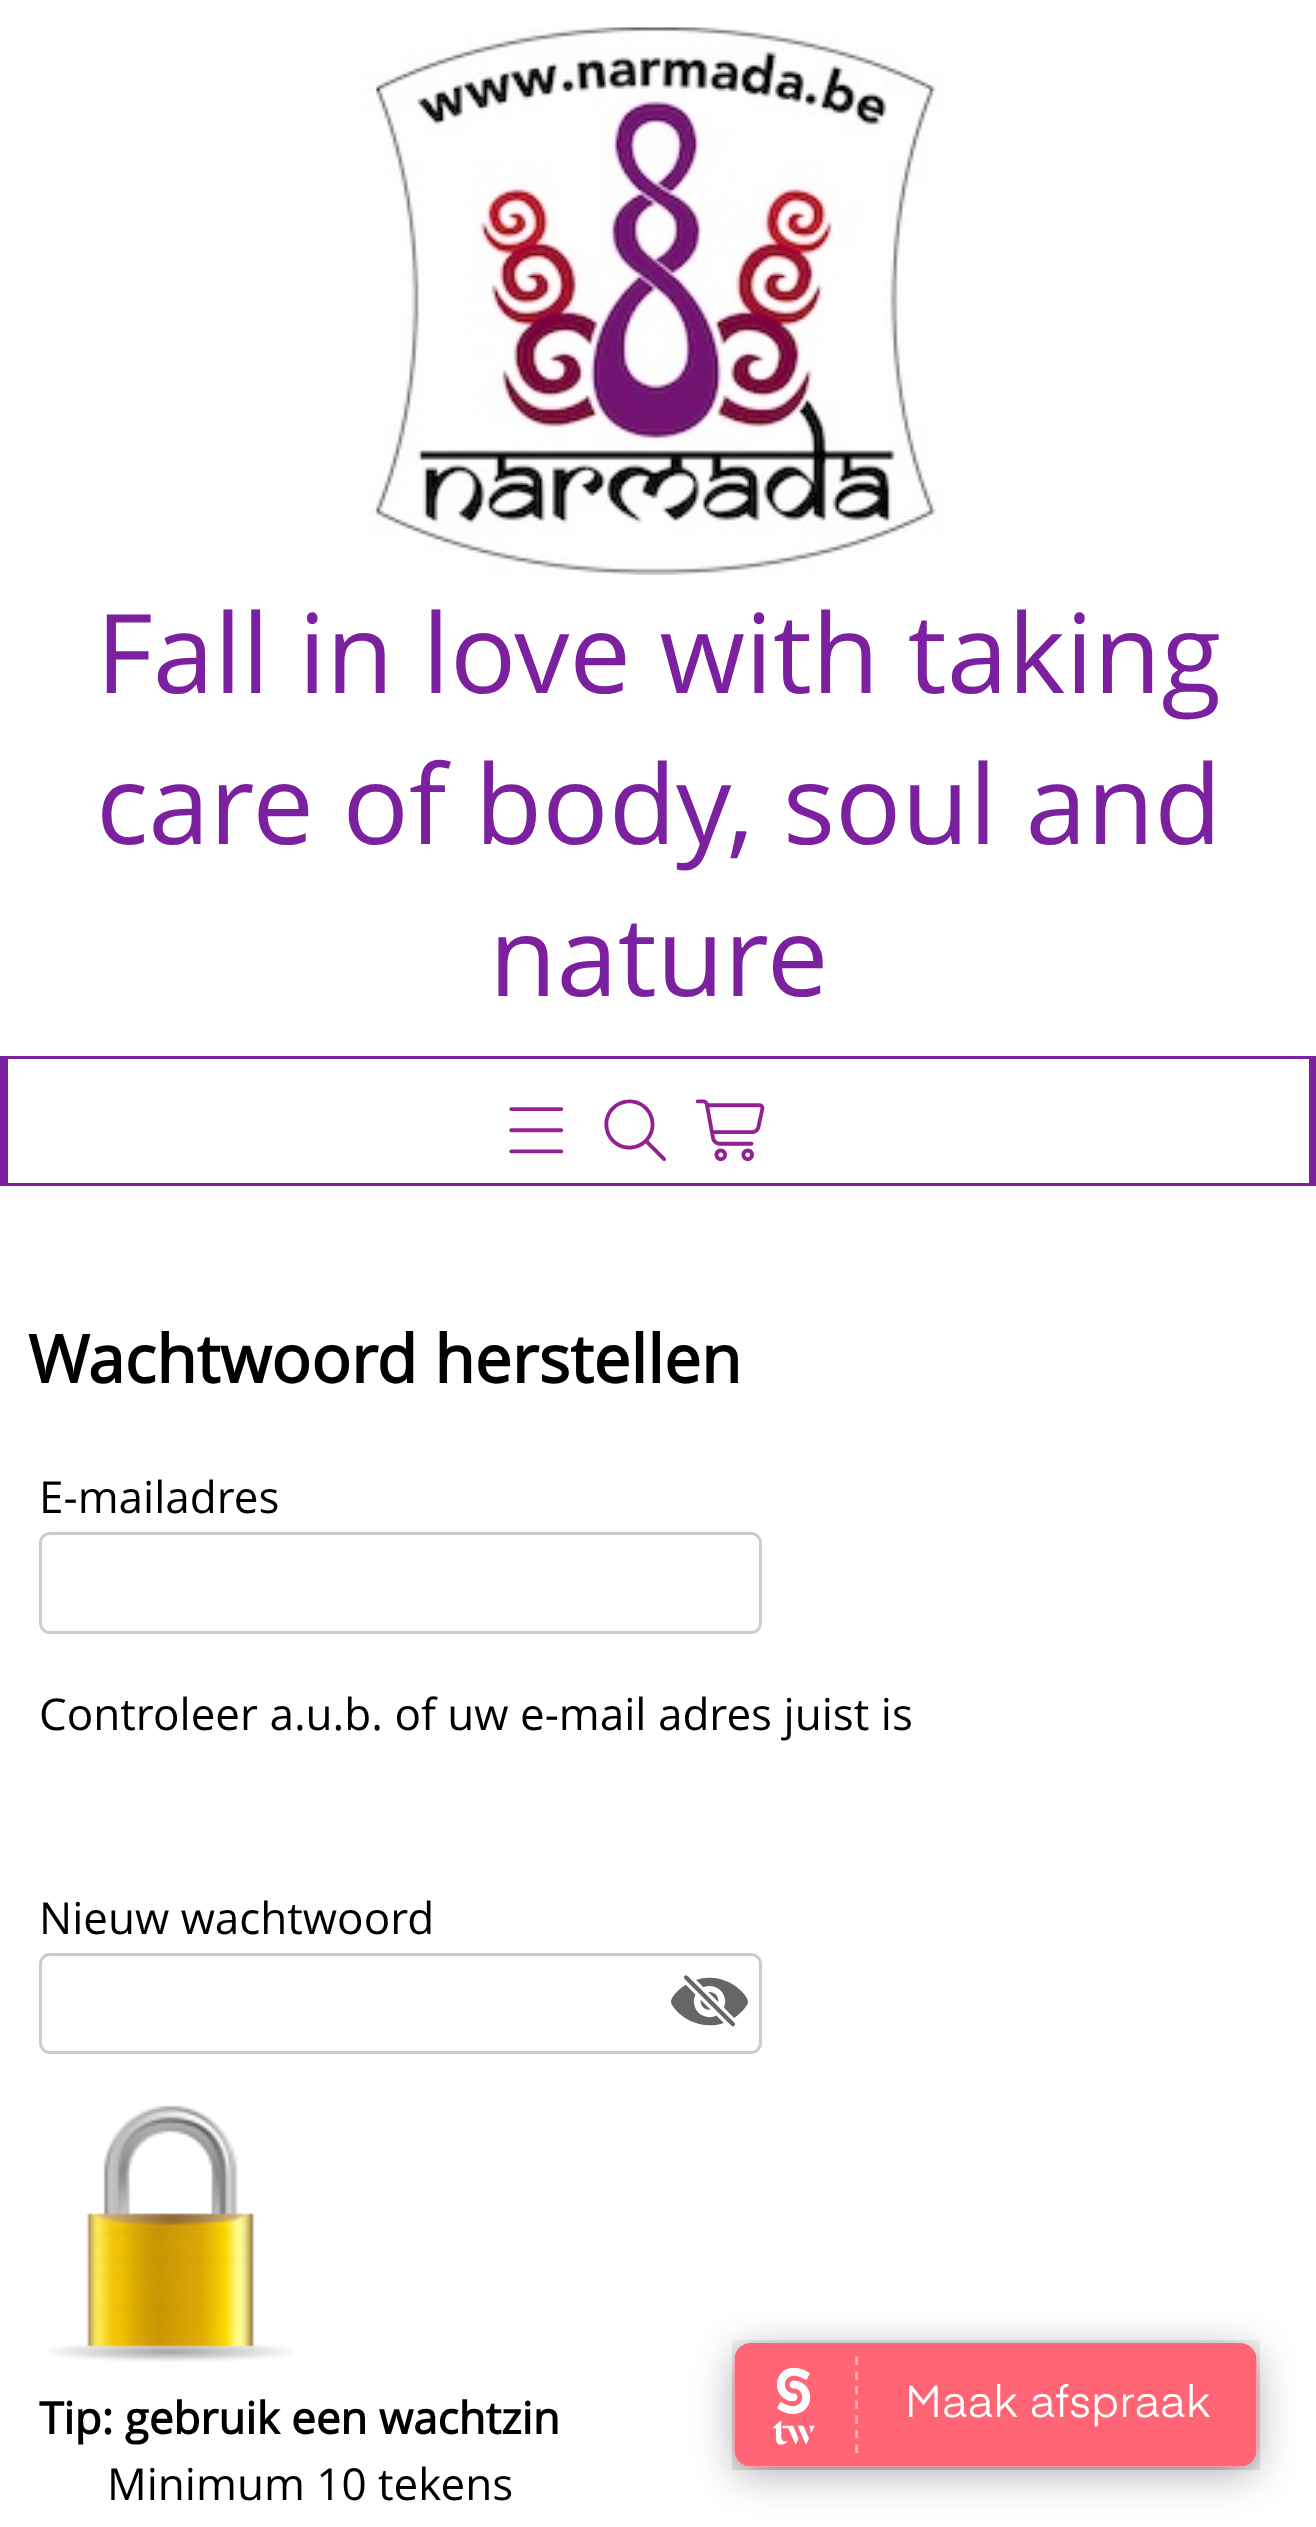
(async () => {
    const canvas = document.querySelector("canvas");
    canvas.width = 1316;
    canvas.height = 2527;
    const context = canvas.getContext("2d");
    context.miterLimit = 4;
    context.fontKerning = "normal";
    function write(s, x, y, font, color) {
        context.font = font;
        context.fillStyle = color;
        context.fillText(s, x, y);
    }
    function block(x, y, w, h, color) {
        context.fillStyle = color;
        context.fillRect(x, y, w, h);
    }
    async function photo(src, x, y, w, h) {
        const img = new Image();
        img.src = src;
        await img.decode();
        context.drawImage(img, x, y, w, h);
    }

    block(0, 0, 1316, 2527, "rgb(255, 255, 255)");
    await photo("media/1.png", 364, 27, 584, 548);
    write("Fall in love with taking", 96, 693, "110px Open Sans", "rgb(123, 33, 159)");
    write("care of body, soul and", 96, 844, "110px Open Sans", "rgb(123, 33, 159)");
    write("nature", 489, 996, "110px Open Sans", "rgb(123, 33, 159)");
    block(0, 1056, 1316, 3, "rgb(123, 33, 159)");
    block(1309, 1056, 7, 129, "rgb(123, 33, 159)");
    block(0, 1183, 1316, 3, "rgb(123, 33, 159)");
    block(0, 1056, 8, 129, "rgb(123, 33, 159)");
    await photo("media/2.png", 509, 1107, 55, 47);
    await photo("media/3.png", 604, 1099, 62, 62);
    await photo("media/4.png", 696, 1099, 69, 62);
    write("Wachtwoord herstellen", 28, 1383, "bold 66px Open Sans", "rgb(0, 0, 0)");
    write("E-mailadres", 39, 1513, "44px Open Sans", "rgb(0, 0, 0)");
    context.beginPath();
    context.roundRect(40.5, 1533.5, 720, 99, 9.5);
    context.strokeStyle = "rgb(204, 204, 204)";
    context.lineWidth = 3;
    context.stroke();
    write("Controleer a.u.b. of uw e-mail adres juist is", 39, 1730, "44px Open Sans", "rgb(0, 0, 0)");
    write("Nieuw wachtwoord", 39, 1934, "44px Open Sans", "rgb(0, 0, 0)");
    context.beginPath();
    context.roundRect(40.5, 1954.5, 720, 98, 9.5);
    context.stroke();
    await photo("media/5.png", 671, 1975, 77, 52);
    await photo("media/6.png", 48, 2105, 245, 257);
    write("Tip: gebruik een wachtzin", 39, 2434, "bold 44px Open Sans", "rgb(0, 0, 0)");
    write("Minimum 10 tekens", 107, 2500, "44px Open Sans", "rgb(0, 0, 0)");
    context.fillStyle = "rgba(0, 0, 0, 0.3)";
    context.filter = "blur(20.5px)";
    context.beginPath();
    context.roundRect(734, 2351, 523, 124, 17);
    context.fill();
    context.filter = "none";
    await photo("media/7.png", 732, 2340, 528, 130);
})();
